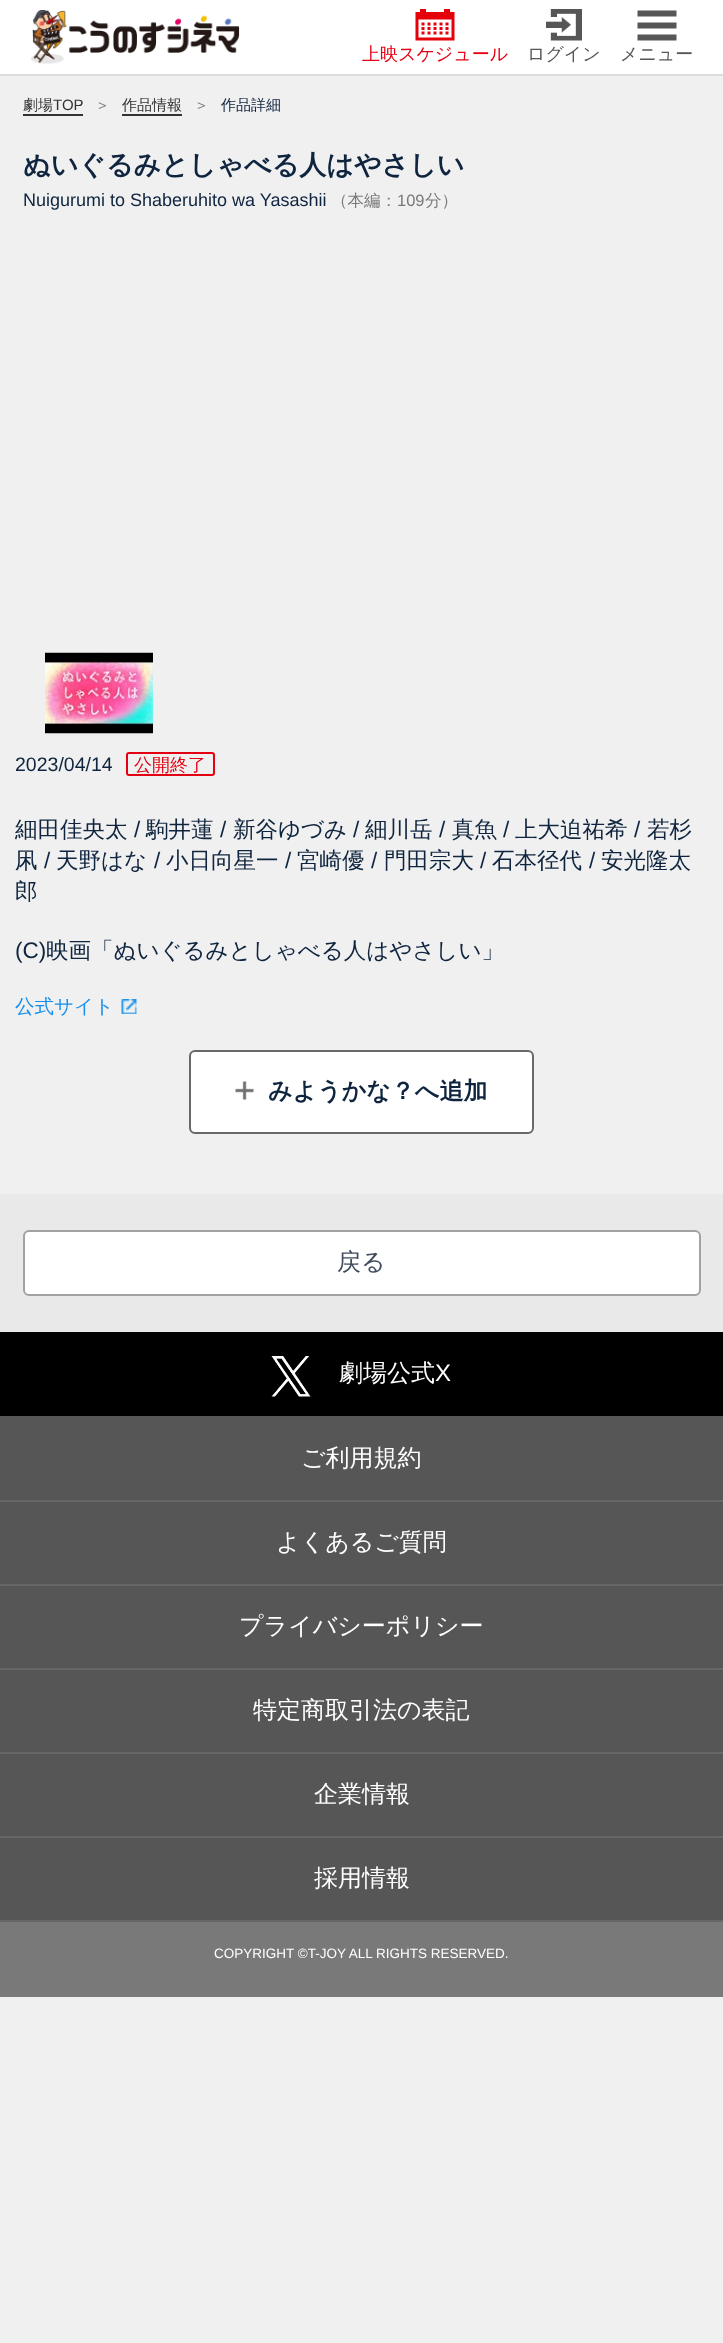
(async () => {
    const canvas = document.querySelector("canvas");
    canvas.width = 723;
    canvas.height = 2343;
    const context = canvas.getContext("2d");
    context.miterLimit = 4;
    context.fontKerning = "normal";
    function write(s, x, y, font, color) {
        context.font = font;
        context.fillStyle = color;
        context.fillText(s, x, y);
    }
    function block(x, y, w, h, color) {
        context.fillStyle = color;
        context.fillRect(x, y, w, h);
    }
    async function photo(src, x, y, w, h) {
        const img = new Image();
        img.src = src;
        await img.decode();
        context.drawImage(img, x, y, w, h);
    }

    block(0, 0, 723, 2343, "rgb(240, 240, 240)");
    block(0, 0, 723, 74, "rgb(255, 255, 255)");
    block(0, 74, 723, 2, "rgb(221, 221, 221)");
    await photo("media/1.png", 31, 10, 209, 54);
    await photo("media/2.png", 415, 9, 40, 32);
    write("上映スケジュール", 362, 60, "500 18px WenQuanYi Zen Hei", "rgb(228, 0, 18)");
    await photo("media/3.png", 546, 9, 36, 32);
    write("ログイン", 527, 60, "500 18px WenQuanYi Zen Hei", "rgb(87, 87, 87)");
    await photo("media/4.png", 637, 10, 40, 31);
    write("メニュー", 620, 60, "500 18px WenQuanYi Zen Hei", "rgb(87, 87, 87)");
    block(23, 114, 60, 2, "rgb(51, 51, 51)");
    write("劇場", 23, 110, "500 15px WenQuanYi Zen Hei", "rgb(51, 51, 51)");
    write("TOP", 53, 110, "15px Liberation Sans", "rgb(51, 51, 51)");
    write("＞", 95, 110, "500 15px WenQuanYi Zen Hei", "rgb(108, 117, 125)");
    block(122, 114, 60, 2, "rgb(51, 51, 51)");
    write("作品情報", 122, 110, "500 15px WenQuanYi Zen Hei", "rgb(51, 51, 51)");
    write("＞", 194, 110, "500 15px WenQuanYi Zen Hei", "rgb(108, 117, 125)");
    write("作品詳細", 221, 110, "500 15px WenQuanYi Zen Hei", "rgb(15, 36, 62)");
    write("ぬいぐるみとしゃべる人はやさしい", 23, 174, "bold 27px WenQuanYi Zen Hei", "rgb(15, 36, 62)");
    write("Nuigurumi to Shaberuhito wa Yasashii", 23, 206, "18px Liberation Sans", "rgb(15, 36, 62)");
    write("（本編：", 331, 206, "500 16.5px WenQuanYi Zen Hei", "rgb(122, 122, 122)");
    write("109", 397, 206, "16.5px Liberation Sans", "rgb(122, 122, 122)");
    write("分）", 425, 206, "500 16.5px WenQuanYi Zen Hei", "rgb(122, 122, 122)");
    await photo("media/5.png", 45, 652, 108, 82);
    write("2023/04/14", 15, 771, "19.5px Liberation Sans", "rgb(15, 36, 62)");
    context.beginPath();
    context.roundRect(127, 753, 87, 22, 2);
    context.strokeStyle = "rgb(228, 0, 18)";
    context.lineWidth = 2;
    context.stroke();
    write("公開終了", 134, 771, "500 18px WenQuanYi Zen Hei", "rgb(228, 0, 18)");
    write("細田佳央太", 15, 837, "500 22.5px WenQuanYi Zen Hei", "rgb(15, 36, 62)");
    write("/", 134, 837, "22.5px Liberation Sans", "rgb(15, 36, 62)");
    write("駒井蓮", 146, 837, "500 22.5px WenQuanYi Zen Hei", "rgb(15, 36, 62)");
    write("/", 220, 837, "22.5px Liberation Sans", "rgb(15, 36, 62)");
    write("新谷ゆづみ", 233, 837, "500 22.5px WenQuanYi Zen Hei", "rgb(15, 36, 62)");
    write("/", 353, 837, "22.5px Liberation Sans", "rgb(15, 36, 62)");
    write("細川岳", 365, 837, "500 22.5px WenQuanYi Zen Hei", "rgb(15, 36, 62)");
    write("/", 439, 837, "22.5px Liberation Sans", "rgb(15, 36, 62)");
    write("真魚", 452, 837, "500 22.5px WenQuanYi Zen Hei", "rgb(15, 36, 62)");
    write("/", 503, 837, "22.5px Liberation Sans", "rgb(15, 36, 62)");
    write("上大迫祐希", 515, 837, "500 22.5px WenQuanYi Zen Hei", "rgb(15, 36, 62)");
    write("/", 634, 837, "22.5px Liberation Sans", "rgb(15, 36, 62)");
    write("若杉", 647, 837, "500 22.5px WenQuanYi Zen Hei", "rgb(15, 36, 62)");
    write("凩", 15, 868, "500 22.5px WenQuanYi Zen Hei", "rgb(15, 36, 62)");
    write("/", 44, 868, "22.5px Liberation Sans", "rgb(15, 36, 62)");
    write("天野はな", 56, 868, "500 22.5px WenQuanYi Zen Hei", "rgb(15, 36, 62)");
    write("/", 154, 868, "22.5px Liberation Sans", "rgb(15, 36, 62)");
    write("小日向星一", 166, 868, "500 22.5px WenQuanYi Zen Hei", "rgb(15, 36, 62)");
    write("/", 285, 868, "22.5px Liberation Sans", "rgb(15, 36, 62)");
    write("宮崎優", 297, 868, "500 22.5px WenQuanYi Zen Hei", "rgb(15, 36, 62)");
    write("/", 371, 868, "22.5px Liberation Sans", "rgb(15, 36, 62)");
    write("門田宗大", 384, 868, "500 22.5px WenQuanYi Zen Hei", "rgb(15, 36, 62)");
    write("/", 480, 868, "22.5px Liberation Sans", "rgb(15, 36, 62)");
    write("石本径代", 492, 868, "500 22.5px WenQuanYi Zen Hei", "rgb(15, 36, 62)");
    write("/", 589, 868, "22.5px Liberation Sans", "rgb(15, 36, 62)");
    write("安光隆太", 601, 868, "500 22.5px WenQuanYi Zen Hei", "rgb(15, 36, 62)");
    write("郎", 15, 899, "500 22.5px WenQuanYi Zen Hei", "rgb(15, 36, 62)");
    write("(C)", 15, 958, "22.5px Liberation Sans", "rgb(15, 36, 62)");
    write("映画「ぬいぐるみとしゃべる人はやさしい」", 46, 958, "500 22.5px WenQuanYi Zen Hei", "rgb(15, 36, 62)");
    write("公式サイト", 15, 1013, "500 19.5px WenQuanYi Zen Hei", "rgb(21, 143, 236)");
    await photo("media/6.png", 121, 999, 16, 15);
    context.fillStyle = "rgb(255, 255, 255)";
    context.beginPath();
    context.roundRect(190, 1051, 343, 82, 5);
    context.fill();
    context.strokeStyle = "rgb(104, 104, 104)";
    context.stroke();
    await photo("media/7.png", 235, 1081, 19, 19);
    write("みようかな？へ追加", 268, 1099, "bold 24px WenQuanYi Zen Hei", "rgb(15, 36, 62)");
    block(0, 1194, 723, 138, "rgb(233, 233, 233)");
    context.fillStyle = "rgb(255, 255, 255)";
    context.beginPath();
    context.roundRect(24, 1231, 676, 64, 5);
    context.fill();
    context.strokeStyle = "rgb(162, 162, 162)";
    context.stroke();
    write("戻る", 337, 1270, "500 24px WenQuanYi Zen Hei", "rgb(65, 75, 91)");
    block(0, 1332, 723, 84, "rgb(0, 0, 0)");
    await photo("media/8.png", 271, 1356, 40, 41);
    write("劇場公式", 339, 1381, "500 24px WenQuanYi Zen Hei", "rgb(255, 255, 255)");
    write("X", 435, 1381, "24px Liberation Sans", "rgb(255, 255, 255)");
    block(0, 1416, 723, 2, "rgb(87, 87, 85)");
    block(0, 1418, 723, 82, "rgb(86, 86, 86)");
    block(0, 1500, 723, 2, "rgb(103, 103, 103)");
    write("ご利用規約", 301, 1466, "500 24px WenQuanYi Zen Hei", "rgb(255, 255, 255)");
    block(0, 1502, 723, 82, "rgb(86, 86, 86)");
    block(0, 1584, 723, 2, "rgb(103, 103, 103)");
    write("よくあるご質問", 276, 1550, "500 24px WenQuanYi Zen Hei", "rgb(255, 255, 255)");
    block(0, 1586, 723, 82, "rgb(86, 86, 86)");
    block(0, 1668, 723, 2, "rgb(103, 103, 103)");
    write("プライバシーポリシー", 239, 1634, "500 24px WenQuanYi Zen Hei", "rgb(255, 255, 255)");
    block(0, 1670, 723, 82, "rgb(86, 86, 86)");
    block(0, 1752, 723, 2, "rgb(103, 103, 103)");
    write("特定商取引法の表記", 253, 1718, "500 24px WenQuanYi Zen Hei", "rgb(255, 255, 255)");
    block(0, 1754, 723, 82, "rgb(86, 86, 86)");
    block(0, 1836, 723, 2, "rgb(103, 103, 103)");
    write("企業情報", 314, 1802, "500 24px WenQuanYi Zen Hei", "rgb(255, 255, 255)");
    block(0, 1838, 723, 82, "rgb(86, 86, 86)");
    block(0, 1920, 723, 2, "rgb(103, 103, 103)");
    write("採用情報", 314, 1886, "500 24px WenQuanYi Zen Hei", "rgb(255, 255, 255)");
    block(0, 1922, 723, 75, "rgb(121, 121, 121)");
    write("COPYRIGHT ©T-JOY ALL RIGHTS RESERVED.", 214, 1958, "13.5px Liberation Sans", "rgb(255, 255, 255)");
})();
